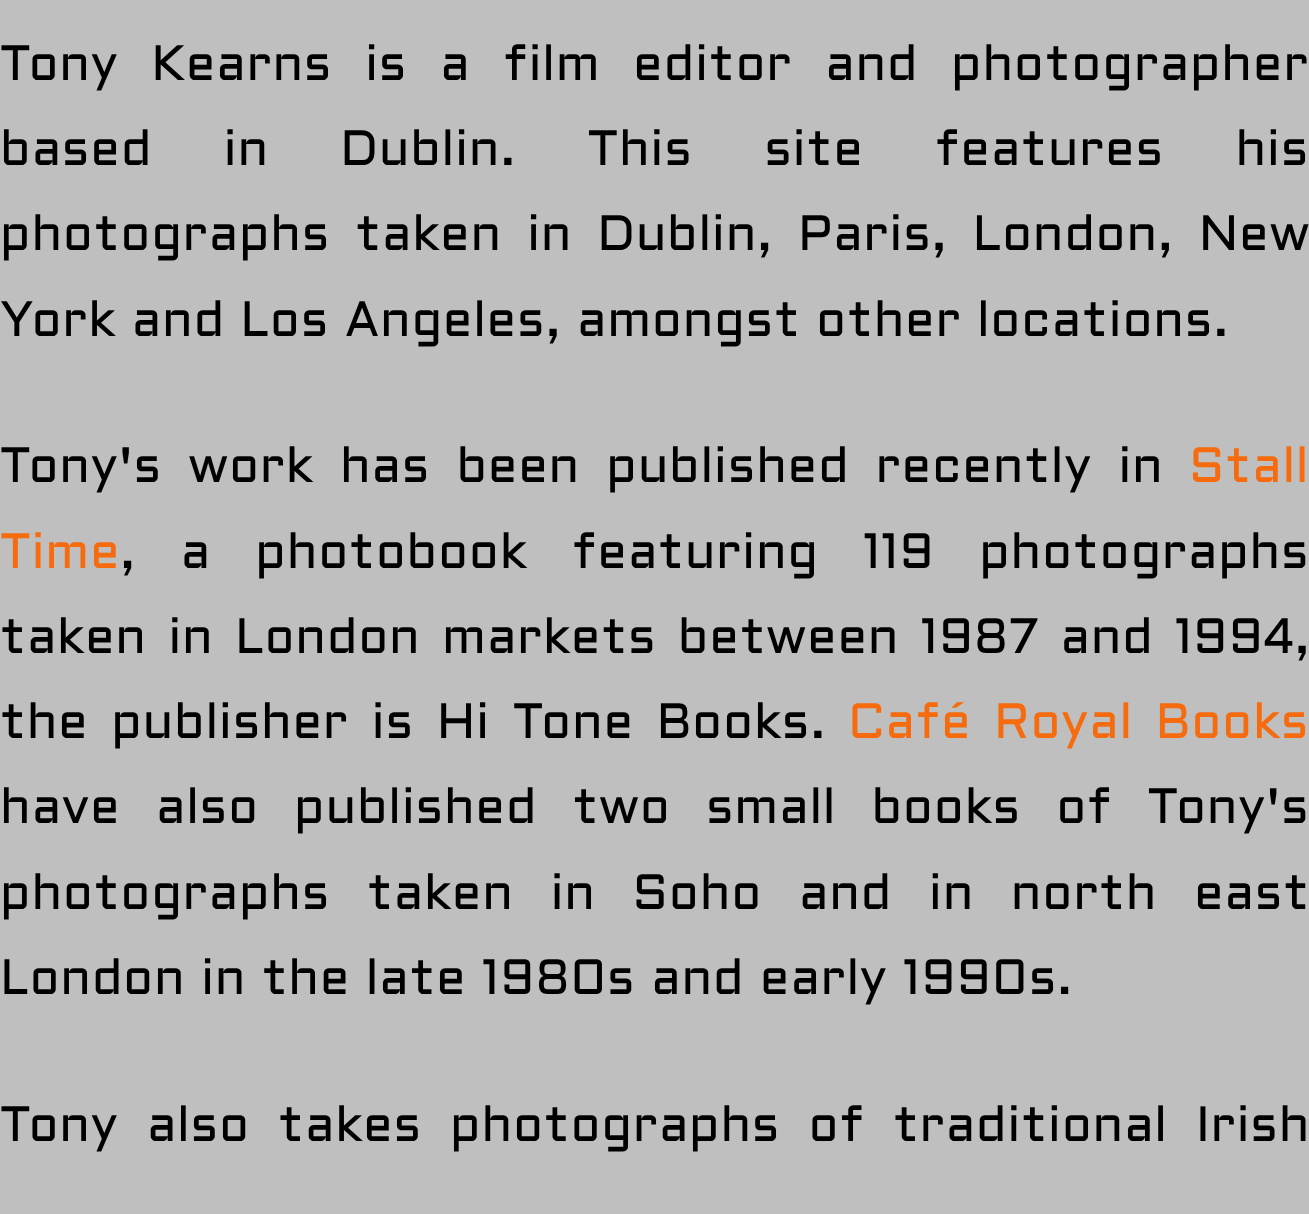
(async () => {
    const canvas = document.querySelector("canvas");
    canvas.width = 1309;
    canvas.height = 1214;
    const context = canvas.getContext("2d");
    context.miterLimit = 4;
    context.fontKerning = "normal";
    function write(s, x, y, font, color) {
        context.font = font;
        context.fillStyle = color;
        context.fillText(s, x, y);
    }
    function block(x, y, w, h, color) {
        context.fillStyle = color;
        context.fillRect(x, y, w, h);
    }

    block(0, 0, 1309, 1214, "rgb(191, 191, 191)");
    context.letterSpacing = "0.7px";
    context.wordSpacing = "17.25px";
    write("Tony Kearns is a film editor and photographer", 0, 80, "49.5px Aldrich", "rgb(0, 0, 0)");
    context.wordSpacing = "56px";
    write("based in Dublin. This site features his", 0, 165, "49.5px Aldrich", "rgb(0, 0, 0)");
    context.wordSpacing = "9.5px";
    write("photographs taken in Dublin, Paris, London, New", 0, 250, "49.5px Aldrich", "rgb(0, 0, 0)");
    context.wordSpacing = "0px";
    write("York and Los Angeles, amongst other locations.", 0, 336, "49.5px Aldrich", "rgb(0, 0, 0)");
    context.wordSpacing = "10.75px";
    write("Tony's work has been published recently in", 0, 482, "49.5px Aldrich", "rgb(0, 0, 0)");
    context.wordSpacing = "0px";
    write("Stall", 1189, 482, "49.5px Aldrich", "rgb(245, 107, 14)");
    write("Time", 0, 568, "49.5px Aldrich", "rgb(245, 107, 14)");
    context.wordSpacing = "29px";
    write(", a photobook featuring 119 photographs", 120, 568, "49.5px Aldrich", "rgb(0, 0, 0)");
    context.wordSpacing = "6px";
    write("taken in London markets between 1987 and 1994,", 0, 653, "49.5px Aldrich", "rgb(0, 0, 0)");
    context.wordSpacing = "7.25px";
    write("the publisher is Hi Tone Books.", 0, 738, "49.5px Aldrich", "rgb(0, 0, 0)");
    write("Café Royal Books", 848, 738, "49.5px Aldrich", "rgb(245, 107, 14)");
    context.wordSpacing = "19.75px";
    write("have also published two small books of Tony's", 0, 823, "49.5px Aldrich", "rgb(0, 0, 0)");
    context.wordSpacing = "21.25px";
    write("photographs taken in Soho and in north east", 0, 909, "49.5px Aldrich", "rgb(0, 0, 0)");
    context.wordSpacing = "0px";
    write("London in the late 1980s and early 1990s.", 0, 994, "49.5px Aldrich", "rgb(0, 0, 0)");
    context.wordSpacing = "12.75px";
    write("Tony also takes photographs of traditional Irish", 0, 1141, "49.5px Aldrich", "rgb(0, 0, 0)");
})();
